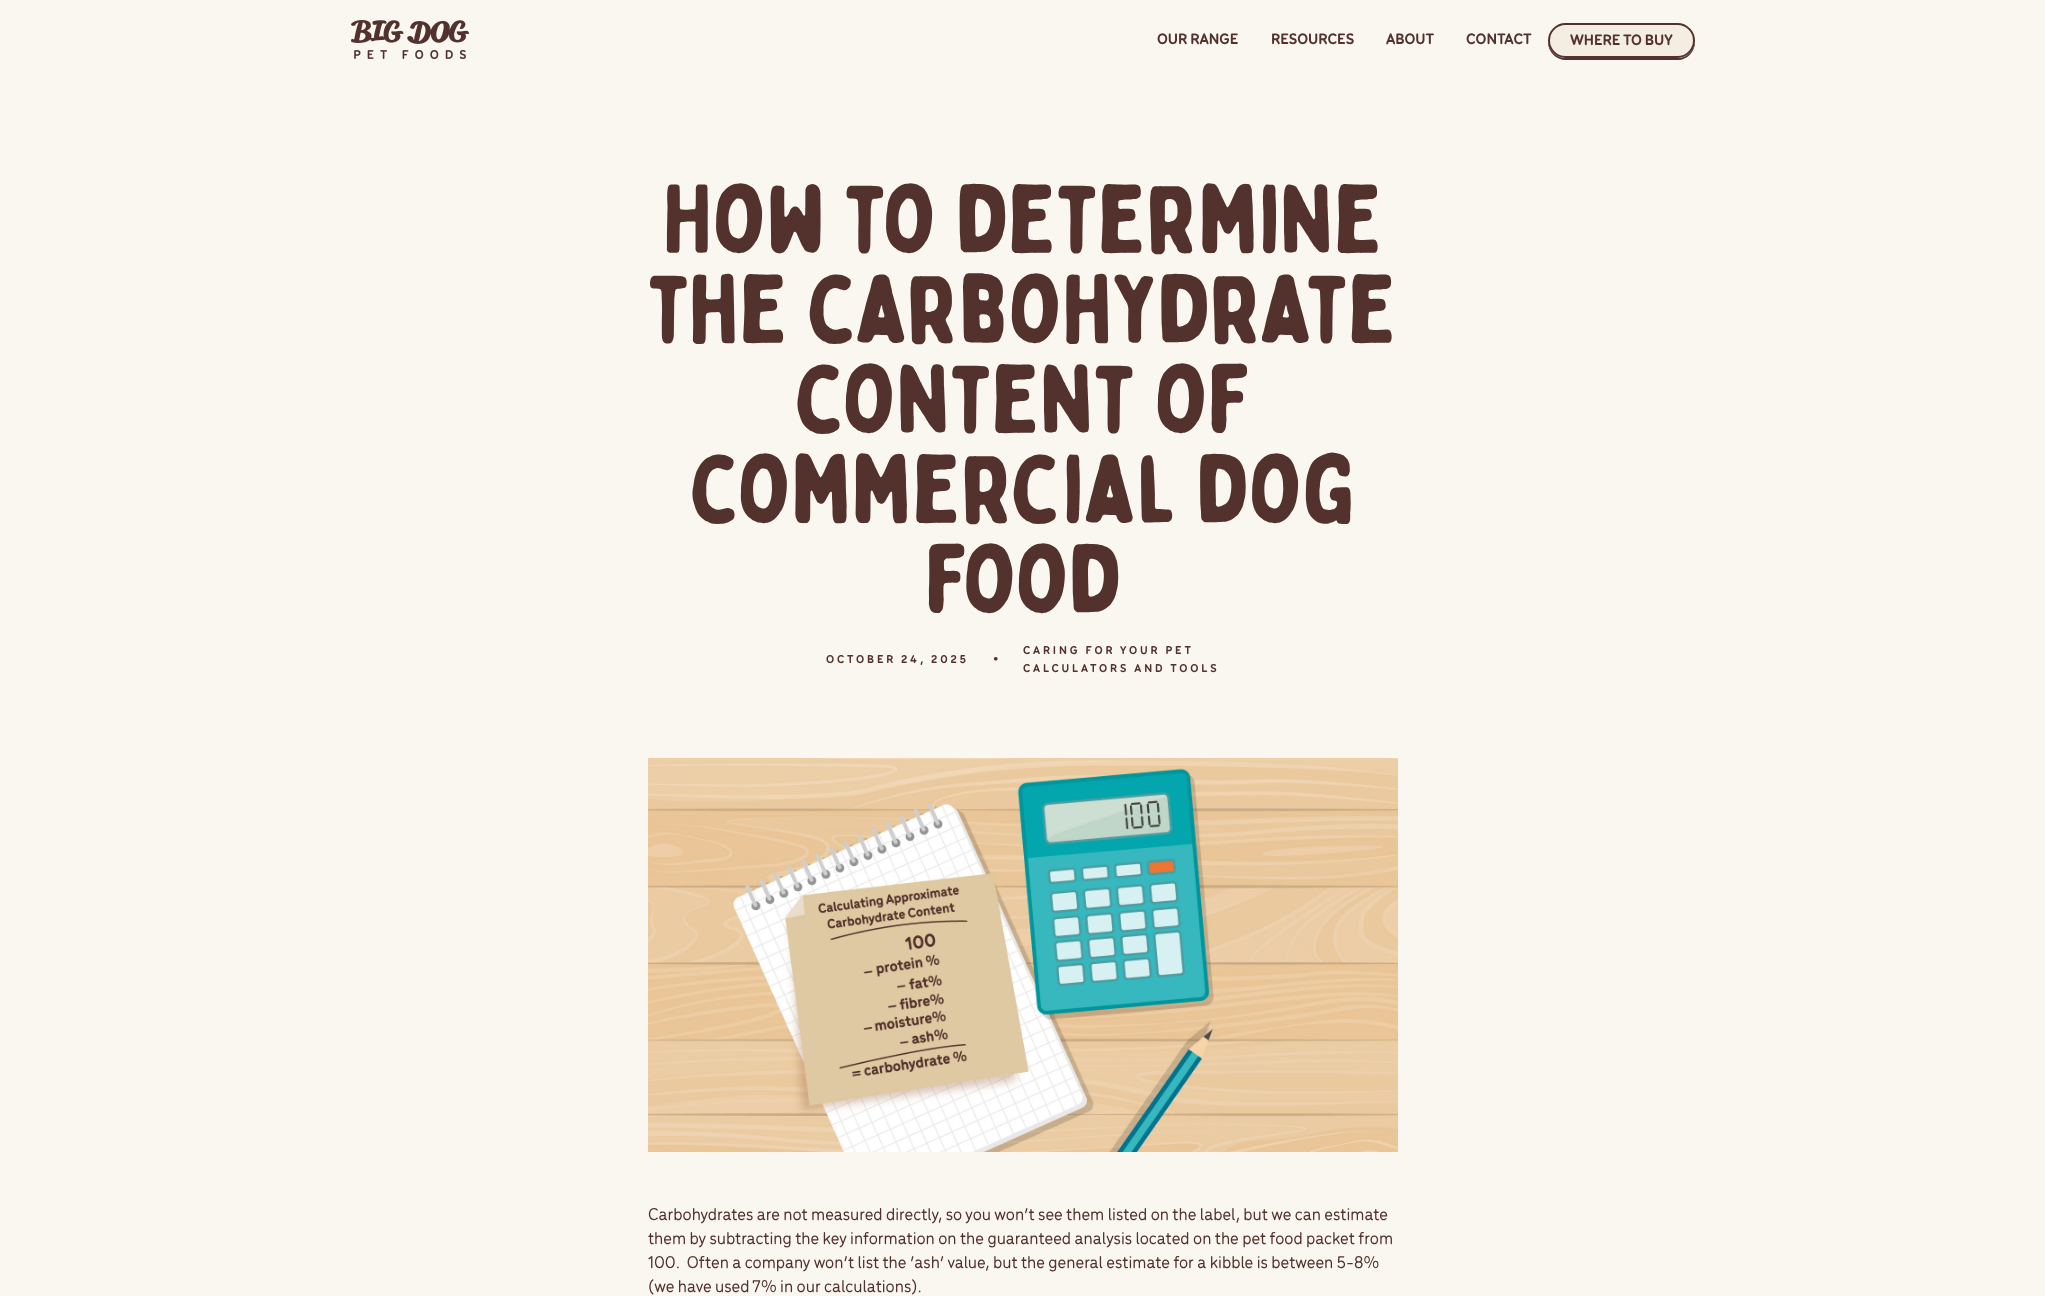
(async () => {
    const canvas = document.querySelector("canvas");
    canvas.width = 2045;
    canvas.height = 1296;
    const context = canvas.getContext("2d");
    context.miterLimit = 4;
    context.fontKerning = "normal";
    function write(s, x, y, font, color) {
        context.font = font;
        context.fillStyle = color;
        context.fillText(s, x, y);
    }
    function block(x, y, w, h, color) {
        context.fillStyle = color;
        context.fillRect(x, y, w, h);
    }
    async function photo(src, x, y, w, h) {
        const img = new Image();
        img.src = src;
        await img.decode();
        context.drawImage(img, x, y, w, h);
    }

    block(0, 0, 2045, 1296, "rgb(250, 247, 241)");
    await photo("media/1.png", 351, 20, 118, 39);
    write("OUR RANGE", 1157, 44, "bold 16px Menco", "rgb(83, 49, 45)");
    write("RESOURCES", 1271, 44, "bold 16px Menco", "rgb(83, 49, 45)");
    write("ABOUT", 1386, 44, "bold 16px Menco", "rgb(83, 49, 45)");
    write("CONTACT", 1466, 44, "bold 16px Menco", "rgb(83, 49, 45)");
    context.beginPath();
    context.moveTo(1548, 41);
    context.lineTo(1548, 42);
    context.bezierCurveTo(1548, 52, 1556, 60, 1566, 60);
    context.lineTo(1678, 60);
    context.bezierCurveTo(1687, 60, 1695, 52, 1695, 42);
    context.lineTo(1695, 41);
    context.bezierCurveTo(1694, 51, 1687, 58, 1678, 58);
    context.lineTo(1566, 58);
    context.bezierCurveTo(1556, 58, 1549, 51, 1548, 41);
    context.closePath();
    context.fill();
    context.fillStyle = "rgb(244, 238, 226)";
    context.beginPath();
    context.roundRect(1549, 24, 145, 33, 16.5);
    context.fill();
    context.strokeStyle = "rgb(83, 49, 45)";
    context.lineWidth = 2;
    context.stroke();
    write("WHERE TO BUY", 1570, 45, "bold 16px Menco", "rgb(83, 49, 45)");
    write("How to determine", 663, 252, "96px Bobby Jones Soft", "rgb(83, 49, 45)");
    write("the carbohydrate", 648, 342, "96px Bobby Jones Soft", "rgb(83, 49, 45)");
    write("content of", 795, 432, "96px Bobby Jones Soft", "rgb(83, 49, 45)");
    write("commercial dog", 690, 522, "96px Bobby Jones Soft", "rgb(83, 49, 45)");
    write("food", 925, 612, "96px Bobby Jones Soft", "rgb(83, 49, 45)");
    context.letterSpacing = "2.9px";
    write("OCTOBER 24, 2025", 826, 663, "bold 12px Menco", "rgb(83, 49, 45)");
    context.letterSpacing = "0px";
    write("•", 993, 664, "bold 16px Menco", "rgb(83, 49, 45)");
    context.letterSpacing = "2.9px";
    write("CARING FOR YOUR PET", 1023, 654, "bold 12px Menco", "rgb(83, 49, 45)");
    write("CALCULATORS AND TOOLS", 1023, 672, "bold 12px Menco", "rgb(83, 49, 45)");
    await photo("media/2.png", 648, 758, 750, 394);
    context.letterSpacing = "0px";
    write("Carbohydrates are not measured directly, so you won’t see them listed on the label, but we can estimate", 648, 1220, "500 18px Menco", "rgb(83, 49, 45)");
    write("them by subtracting the key information on the guaranteed analysis located on the pet food packet from", 648, 1244, "500 18px Menco", "rgb(83, 49, 45)");
    write("100.  Often a company won’t list the ‘ash’ value, but the general estimate for a kibble is between 5-8%", 648, 1268, "500 18px Menco", "rgb(83, 49, 45)");
    write("(we have used 7% in our calculations).", 648, 1292, "500 18px Menco", "rgb(83, 49, 45)");
})();
